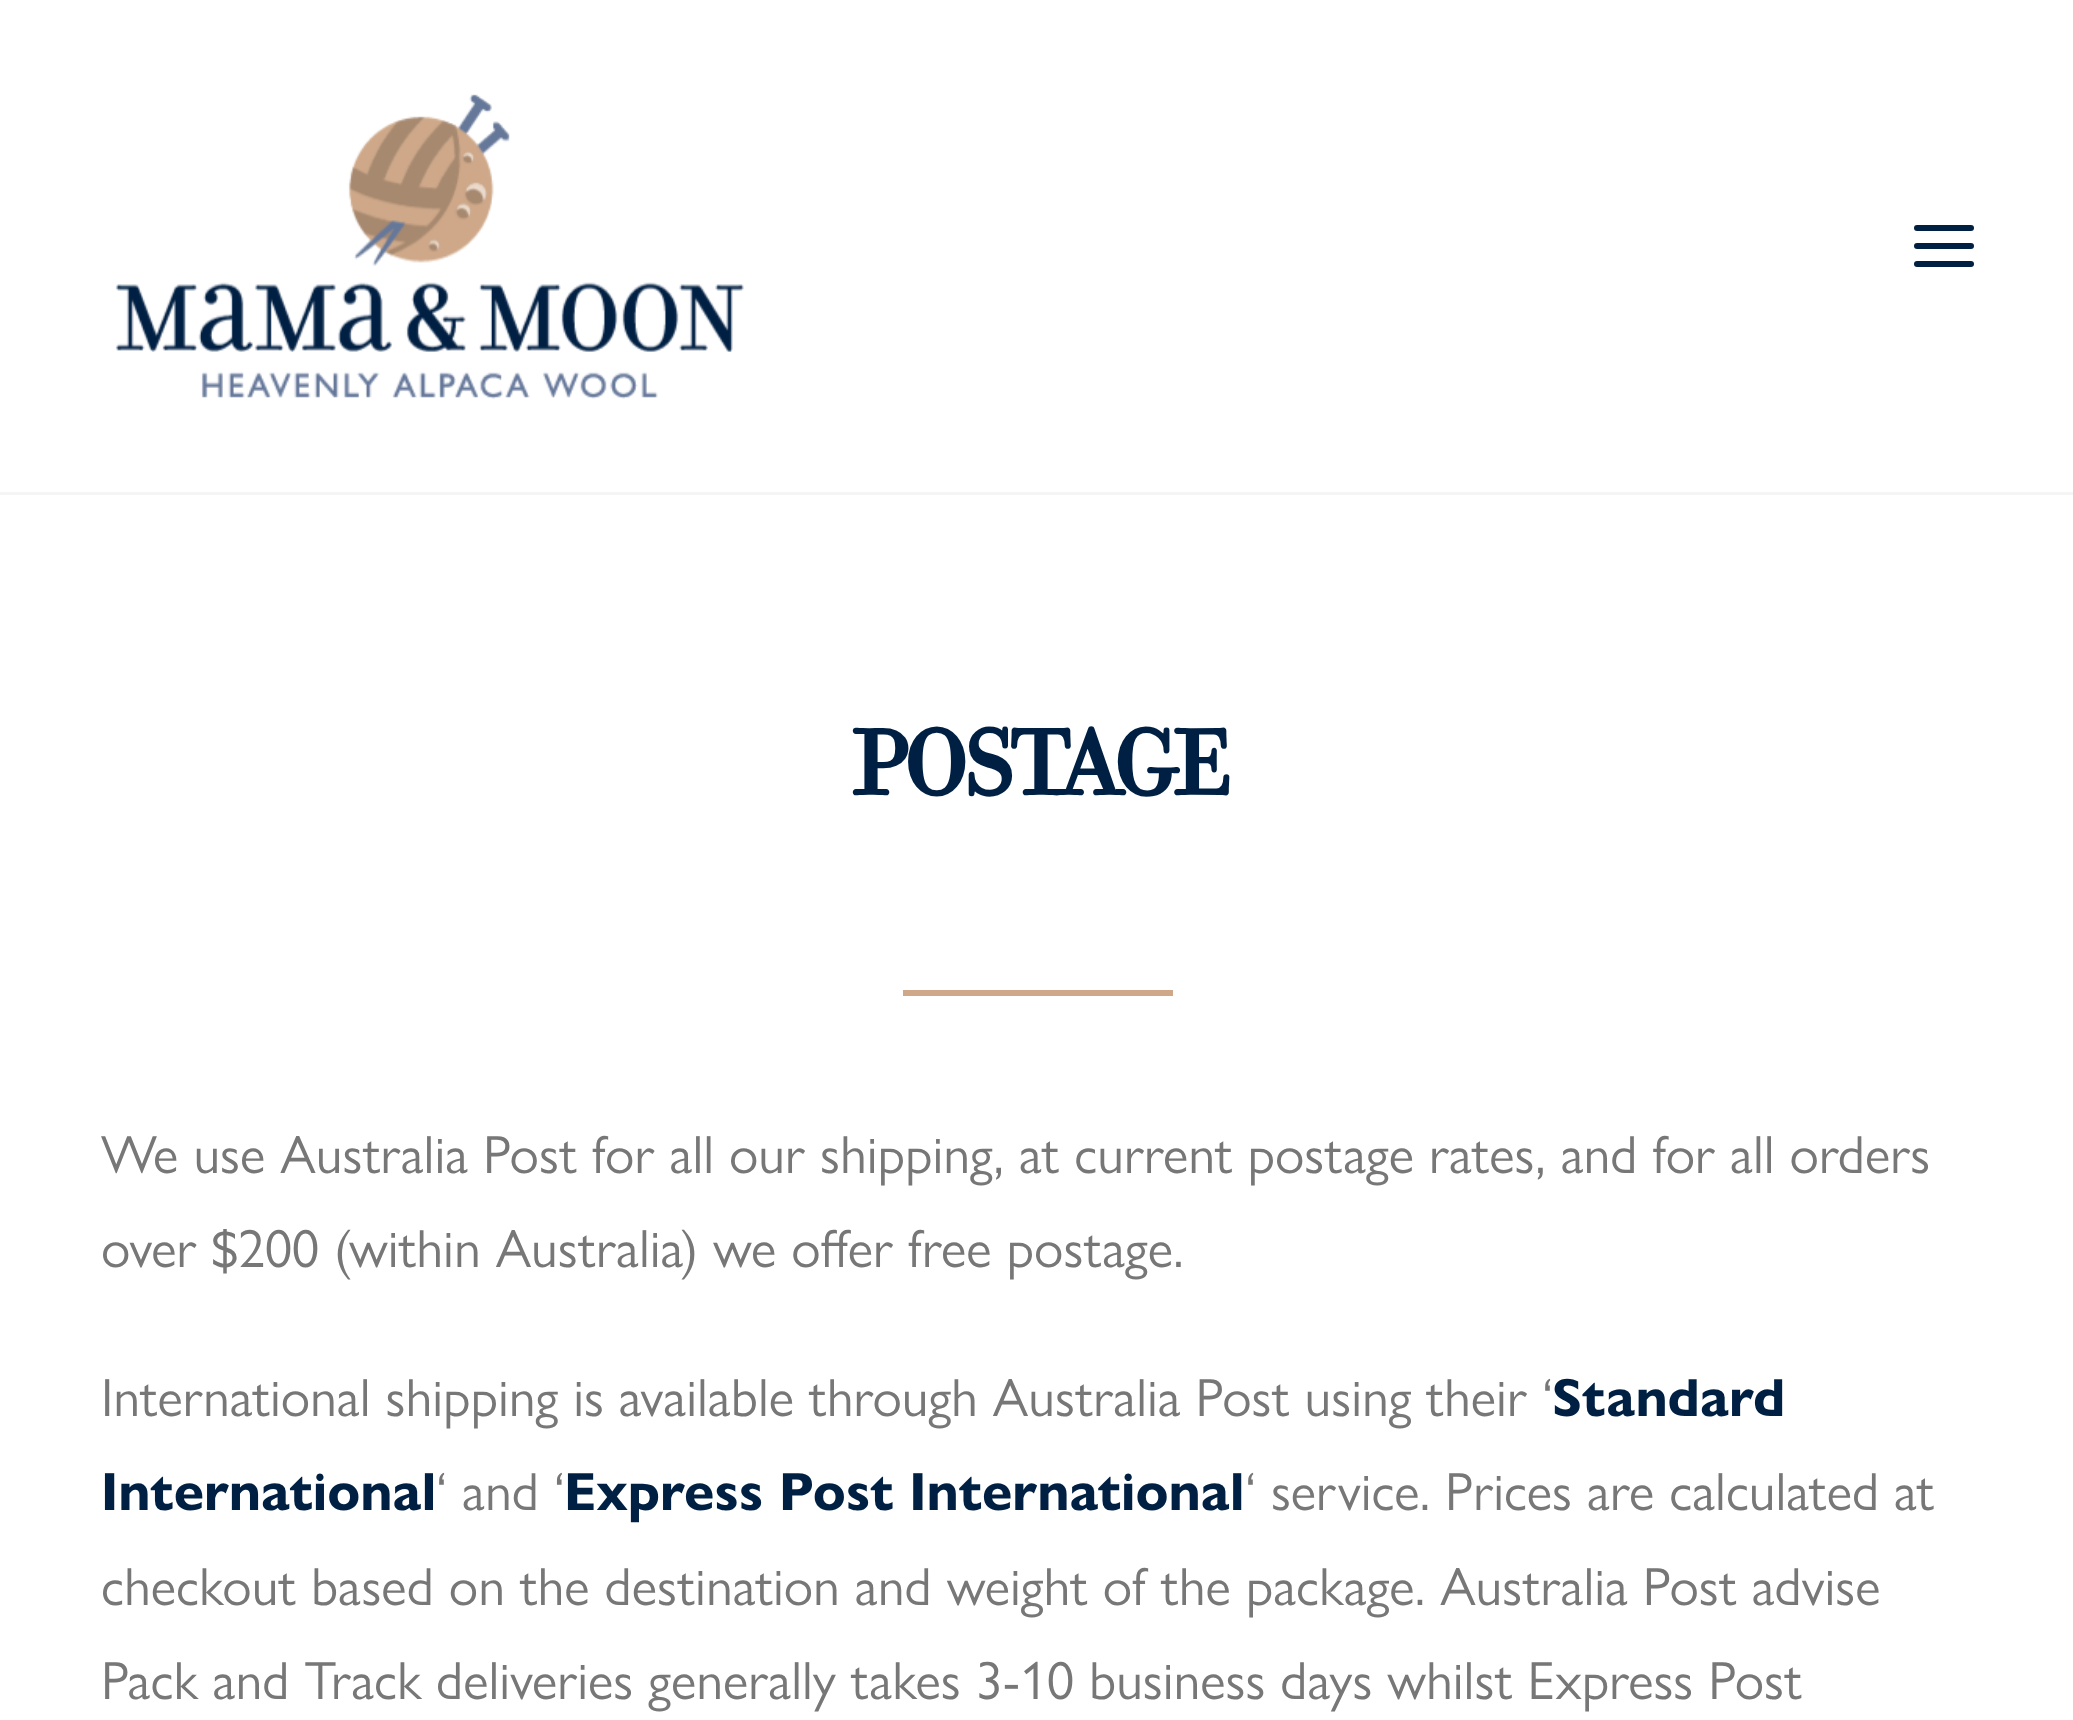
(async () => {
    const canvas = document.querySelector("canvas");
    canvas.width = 2073;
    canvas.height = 1720;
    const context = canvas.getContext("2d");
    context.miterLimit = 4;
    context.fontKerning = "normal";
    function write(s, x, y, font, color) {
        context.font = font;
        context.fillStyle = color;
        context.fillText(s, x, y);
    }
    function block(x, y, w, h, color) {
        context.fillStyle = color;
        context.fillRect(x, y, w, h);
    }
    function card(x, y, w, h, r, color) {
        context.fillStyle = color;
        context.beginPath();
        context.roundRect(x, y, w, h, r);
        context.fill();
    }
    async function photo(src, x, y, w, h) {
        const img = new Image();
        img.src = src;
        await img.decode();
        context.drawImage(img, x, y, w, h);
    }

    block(0, 0, 2073, 1720, "rgb(255, 255, 255)");
    block(0, 492, 2073, 3, "rgb(245, 245, 245)");
    await photo("media/1.png", 115, 94, 629, 305);
    card(1914, 243, 60, 6, 3, "rgb(0, 32, 67)");
    card(1914, 225, 60, 6, 3, "rgb(0, 32, 67)");
    card(1914, 261, 60, 6, 3, "rgb(0, 32, 67)");
    context.letterSpacing = "-5px";
    write("POSTAGE", 849, 795, "bold 100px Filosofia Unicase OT", "rgb(0, 32, 67)");
    block(903, 990, 270, 6, "rgb(206, 168, 137)");
    context.letterSpacing = "0px";
    write("We use Australia Post for all our shipping, at current postage rates, and for all orders", 101, 1173, "54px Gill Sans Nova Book", "rgb(119, 119, 119)");
    write("over $200 (within Australia) we offer free postage.", 101, 1267, "54px Gill Sans Nova Book", "rgb(119, 119, 119)");
    write("International shipping is available through Australia Post using their ‘", 101, 1416, "54px Gill Sans Nova Book", "rgb(119, 119, 119)");
    write("Standard", 1552, 1416, "bold 54px Gill Sans Nova Book", "rgb(0, 32, 67)");
    write("International", 101, 1510, "bold 54px Gill Sans Nova Book", "rgb(0, 32, 67)");
    write("‘ and ‘", 436, 1510, "54px Gill Sans Nova Book", "rgb(119, 119, 119)");
    write("Express Post International", 564, 1510, "bold 54px Gill Sans Nova Book", "rgb(0, 32, 67)");
    write("‘ service. Prices are calculated at", 1245, 1510, "54px Gill Sans Nova Book", "rgb(119, 119, 119)");
    write("checkout based on the destination and weight of the package. Australia Post advise", 101, 1605, "54px Gill Sans Nova Book", "rgb(119, 119, 119)");
    write("Pack and Track deliveries generally takes 3-10 business days whilst Express Post", 101, 1699, "54px Gill Sans Nova Book", "rgb(119, 119, 119)");
})();
